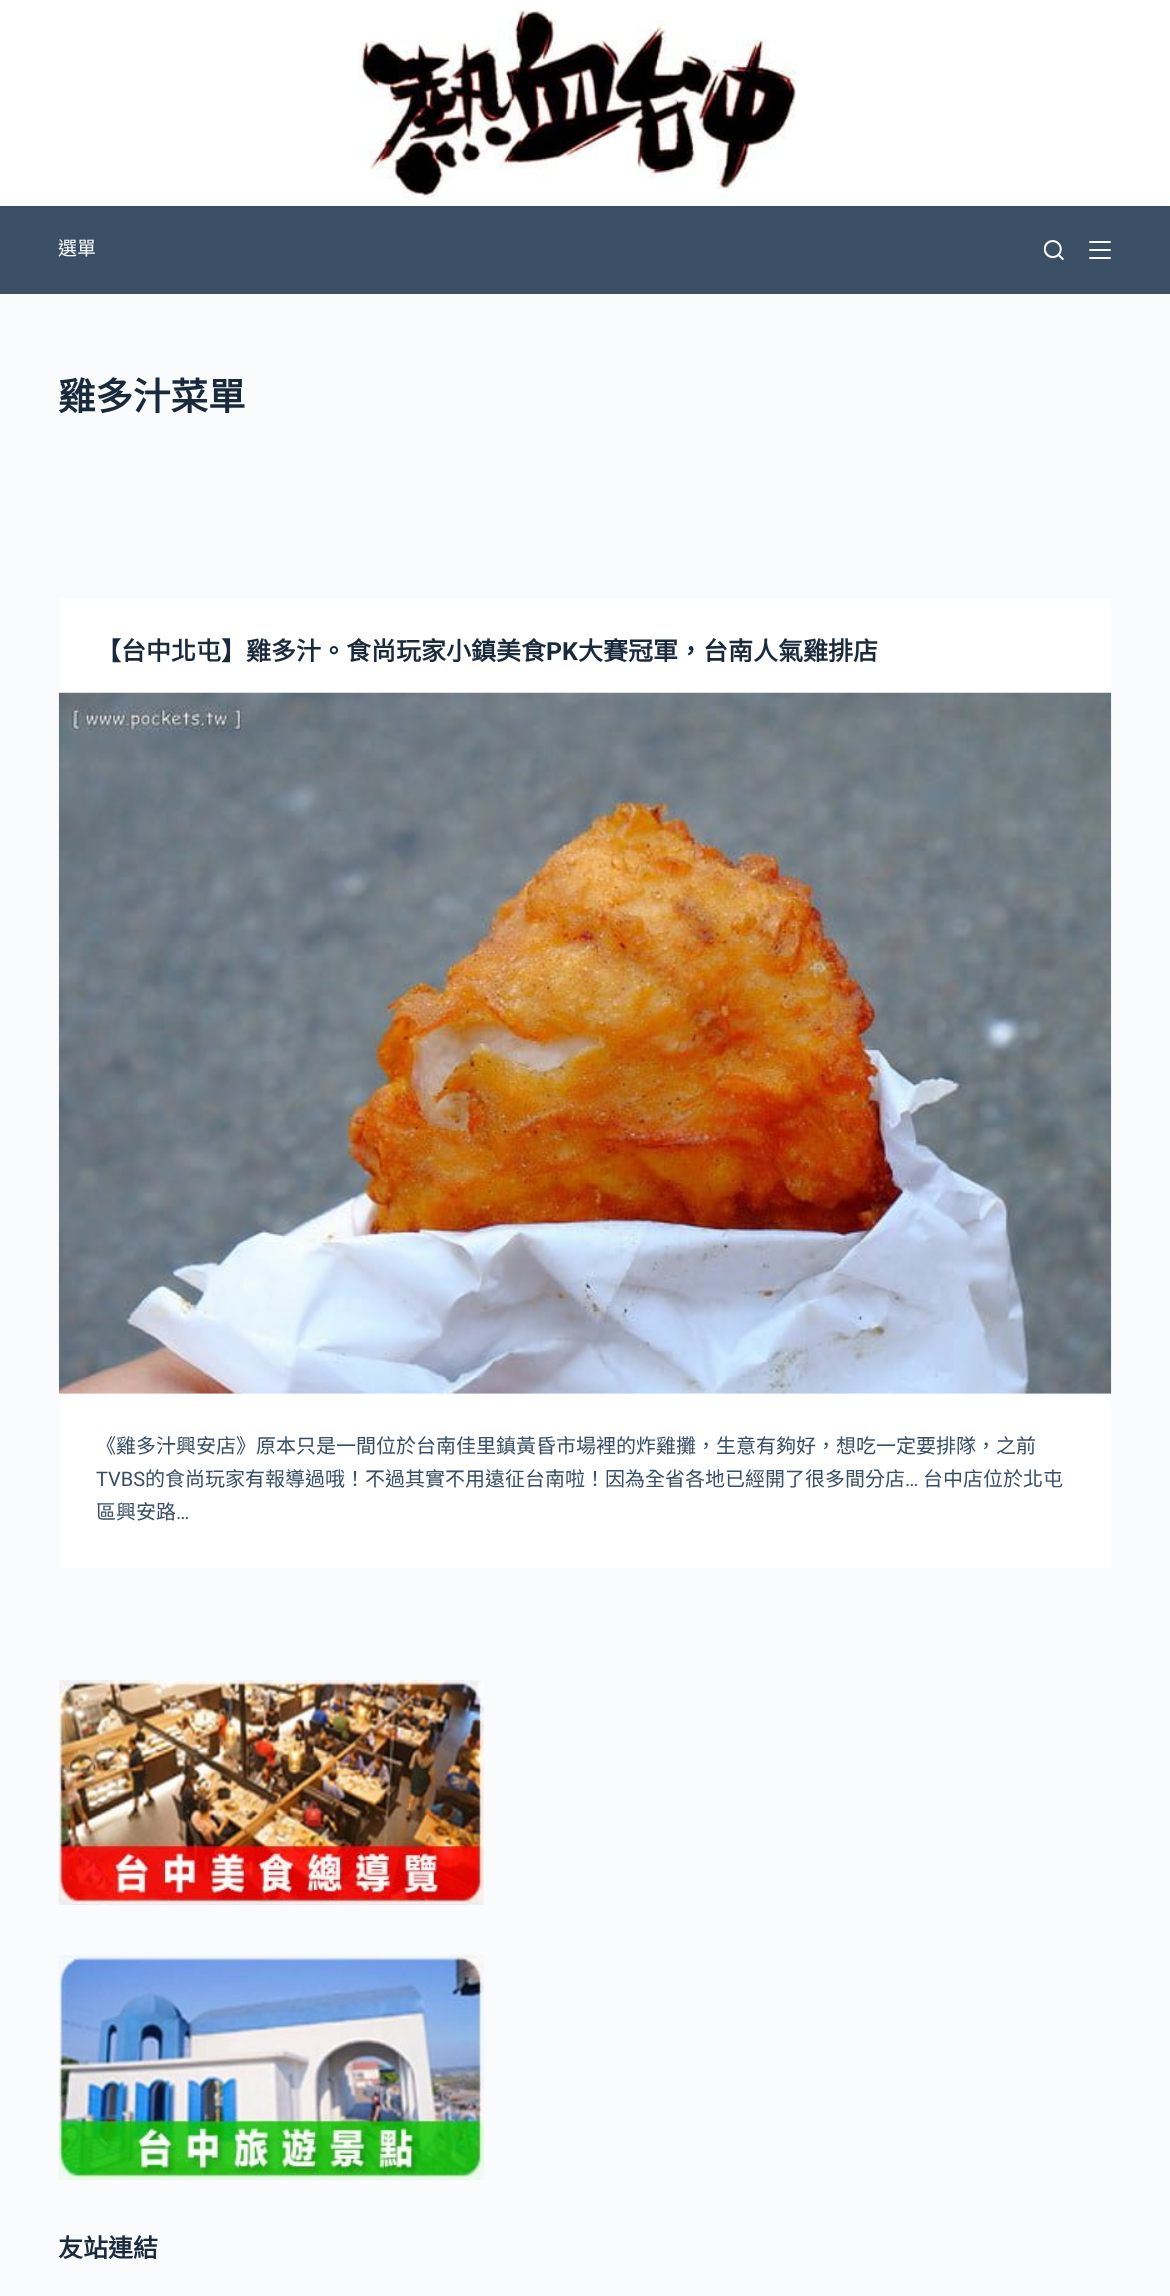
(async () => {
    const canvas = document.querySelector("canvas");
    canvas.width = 1170;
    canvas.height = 2296;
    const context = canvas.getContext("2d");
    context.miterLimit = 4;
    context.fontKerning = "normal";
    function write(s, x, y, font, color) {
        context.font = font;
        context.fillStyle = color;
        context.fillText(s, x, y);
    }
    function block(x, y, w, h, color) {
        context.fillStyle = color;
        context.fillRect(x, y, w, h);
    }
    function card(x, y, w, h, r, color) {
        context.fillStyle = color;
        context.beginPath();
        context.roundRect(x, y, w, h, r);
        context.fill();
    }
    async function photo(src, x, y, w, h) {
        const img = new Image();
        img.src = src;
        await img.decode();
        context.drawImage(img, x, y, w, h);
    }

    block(0, 0, 1170, 2296, "rgb(250, 251, 252)");
    block(0, 0, 1170, 206, "rgb(255, 255, 255)");
    await photo("media/1.png", 359, 7, 437, 192);
    block(0, 206, 1170, 88, "rgb(58, 79, 102)");
    write("選單", 58, 255, "19px Noto Sans CJK TC", "rgb(250, 251, 252)");
    await photo("media/2.png", 1044, 240, 20, 20);
    card(1089, 241, 22, 2, 1, "rgb(250, 251, 252)");
    card(1089, 249, 22, 2, 1, "rgb(250, 251, 252)");
    card(1089, 257, 22, 2, 1, "rgb(250, 251, 252)");
    write("雞多汁菜單", 58, 410, "bold 37.5px Noto Sans CJK TC", "rgb(25, 42, 61)");
    block(59, 598, 1052, 970, "rgb(255, 255, 255)");
    write("【台中北屯】雞多汁。食尚玩家小鎮美食", 96, 660, "bold 25px Noto Sans CJK TC", "rgb(25, 42, 61)");
    write("PK", 546, 660, "bold 25px Roboto", "rgb(25, 42, 61)");
    write("大賽冠軍，台南人氣雞排店", 578, 660, "bold 25px Noto Sans CJK TC", "rgb(25, 42, 61)");
    await photo("media/3.png", 58, 692, 1054, 702);
    write("《雞多汁興安店》原本只是一間位於台南佳里鎮黃昏市場裡的炸雞攤，生意有夠好，想吃一定要排隊，之前", 96, 1453, "20px Noto Sans CJK TC", "rgb(58, 79, 102)");
    write("TVBS", 96, 1486, "20px Roboto", "rgb(58, 79, 102)");
    write("的食尚玩家有報導過哦！不過其實不用遠征台南啦！因為全省各地已經開了很多間分店", 145, 1486, "20px Noto Sans CJK TC", "rgb(58, 79, 102)");
    write("…", 905, 1486, "20px Roboto", "rgb(58, 79, 102)");
    write("台中店位於北屯", 923, 1486, "20px Noto Sans CJK TC", "rgb(58, 79, 102)");
    write("區興安路", 96, 1519, "20px Noto Sans CJK TC", "rgb(58, 79, 102)");
    write("…", 176, 1519, "20px Roboto", "rgb(58, 79, 102)");
    await photo("media/4.png", 58, 1680, 426, 225);
    await photo("media/5.png", 58, 1955, 426, 225);
    write("友站連結", 58, 2257, "bold 25px Noto Sans CJK TC", "rgb(25, 42, 61)");
})();
